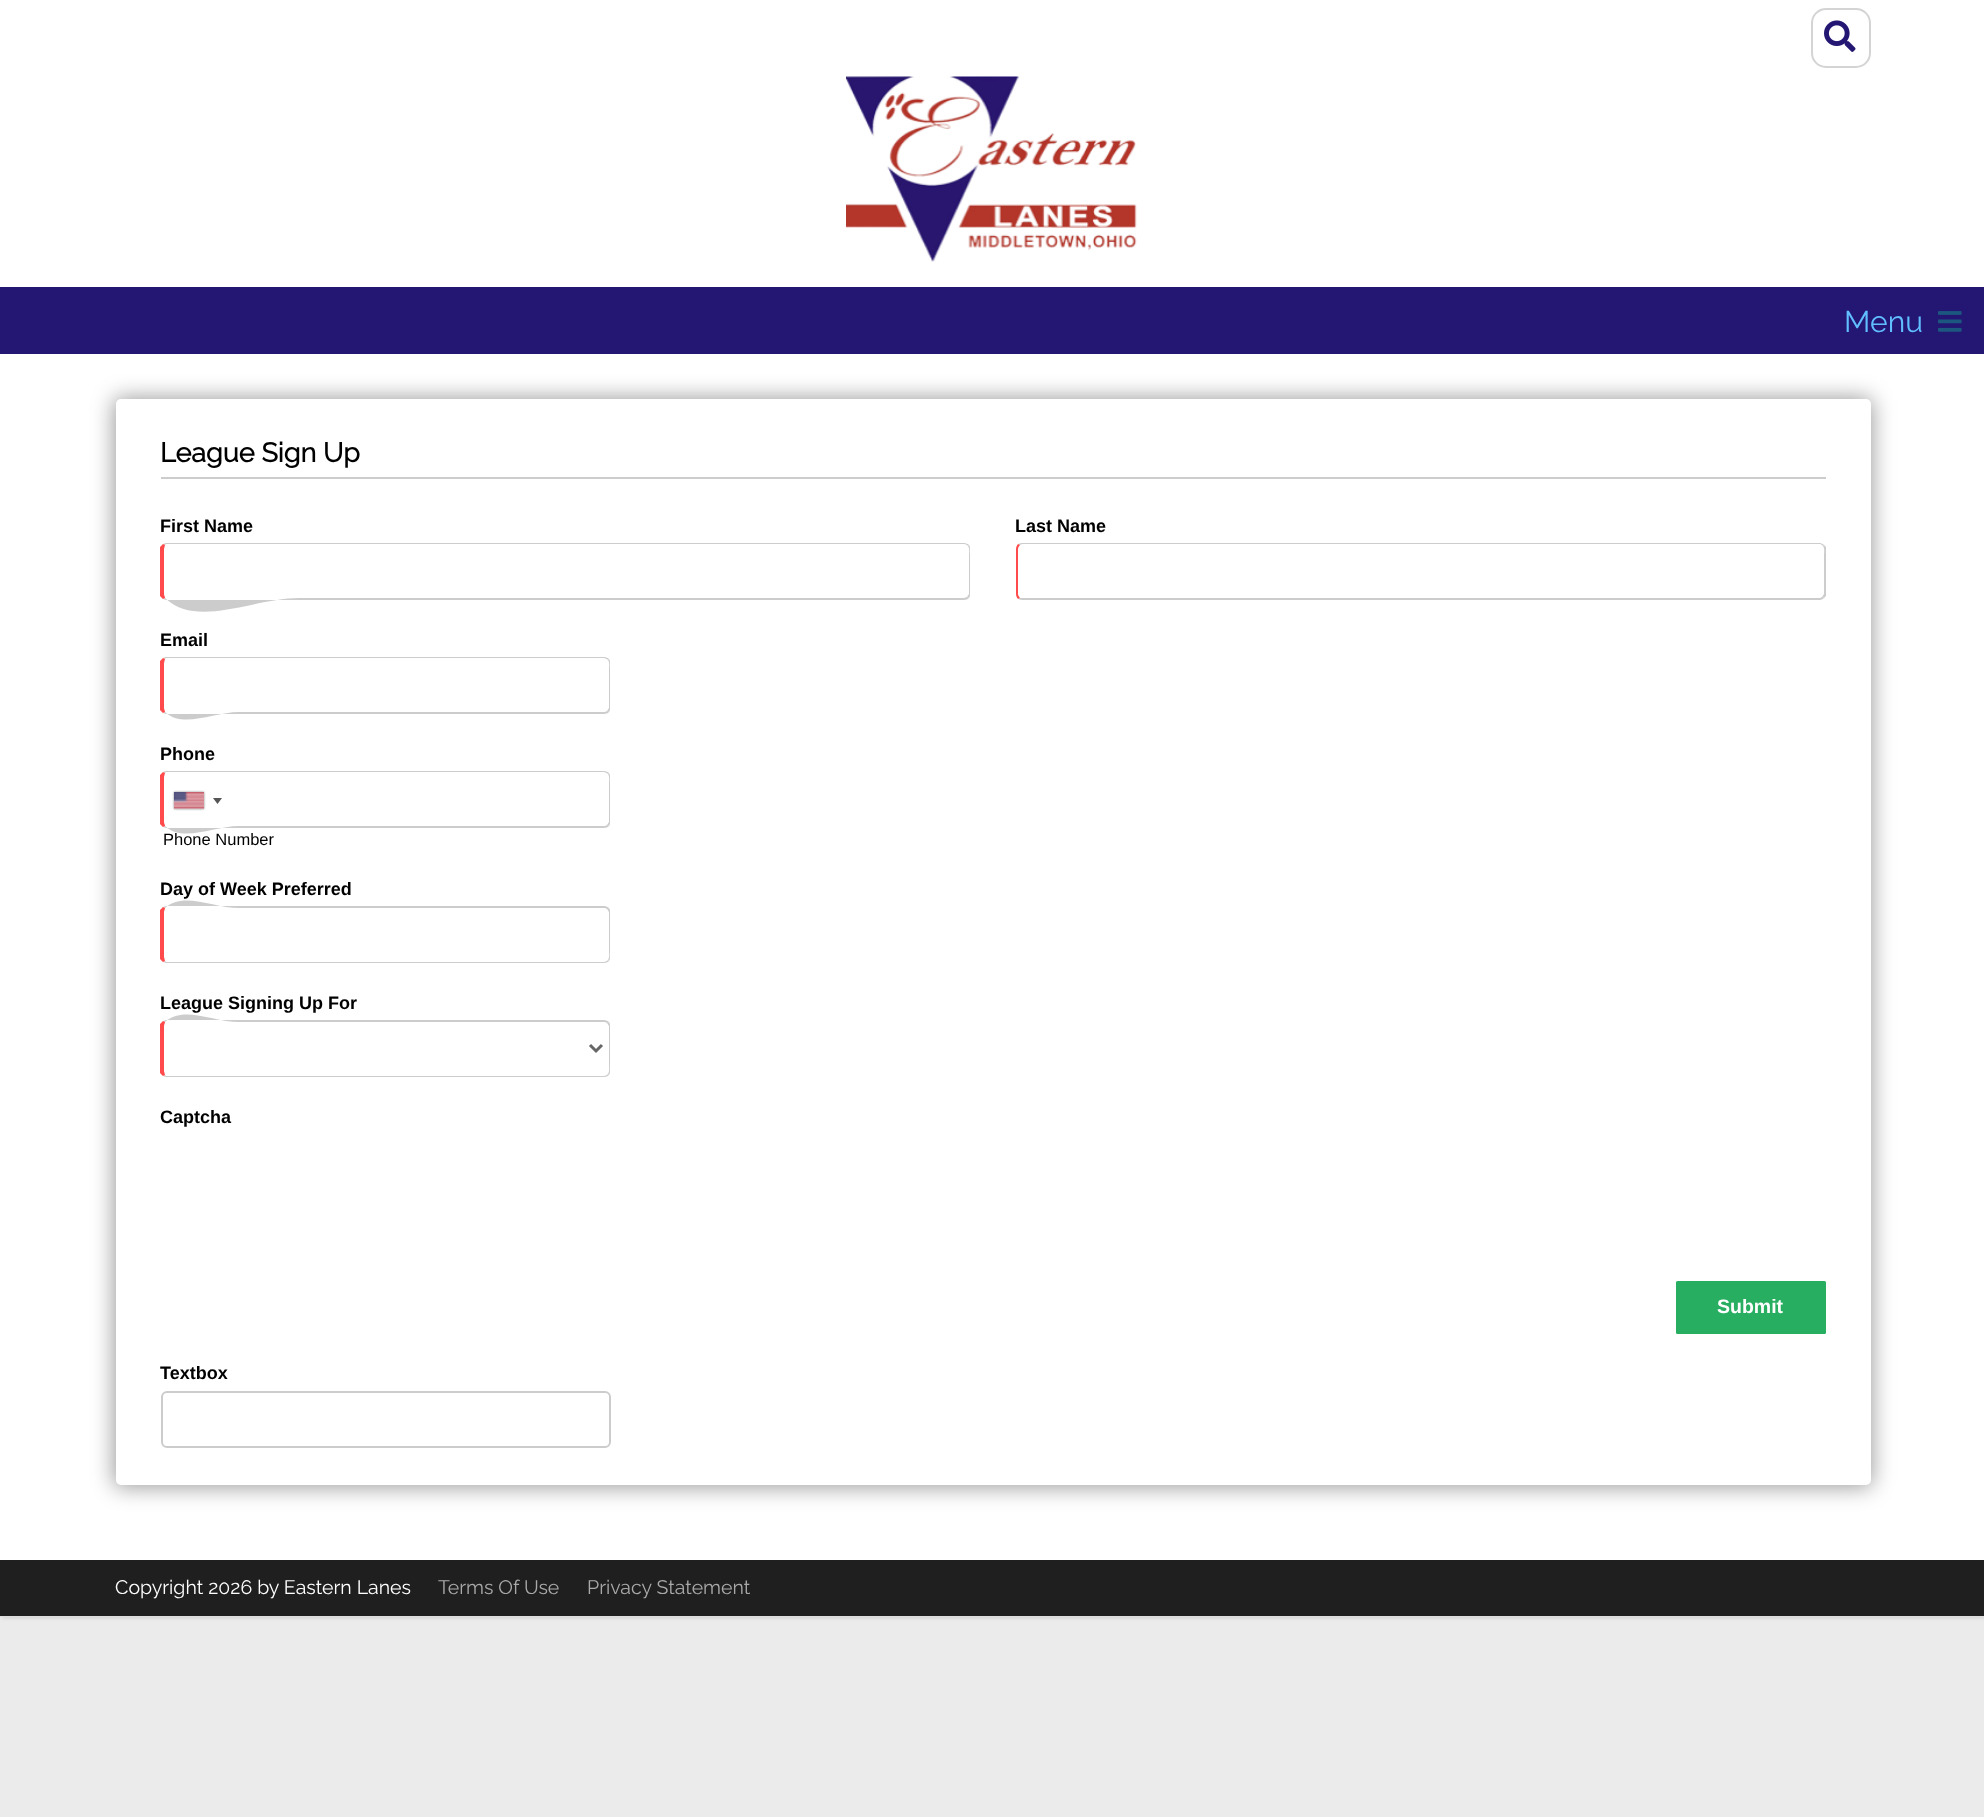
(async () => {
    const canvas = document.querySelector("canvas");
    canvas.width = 1984;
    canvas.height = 1817;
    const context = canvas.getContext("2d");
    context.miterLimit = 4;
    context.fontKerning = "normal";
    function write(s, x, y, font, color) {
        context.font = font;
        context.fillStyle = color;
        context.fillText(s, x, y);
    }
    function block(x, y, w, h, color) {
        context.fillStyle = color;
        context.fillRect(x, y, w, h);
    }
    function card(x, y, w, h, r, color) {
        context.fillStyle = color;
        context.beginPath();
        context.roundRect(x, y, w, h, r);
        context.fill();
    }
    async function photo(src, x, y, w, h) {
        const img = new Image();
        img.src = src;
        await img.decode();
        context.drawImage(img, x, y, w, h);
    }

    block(0, 0, 1984, 1817, "rgb(235, 235, 235)");
    context.fillStyle = "rgb(194, 194, 194)";
    context.filter = "blur(2px)";
    context.beginPath();
    context.rect(2, 2, 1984, 1615);
    context.fill();
    context.filter = "none";
    context.strokeStyle = "rgb(221, 221, 221)";
    context.lineWidth = 2;
    context.strokeRect(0, 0, 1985, 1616);
    block(0, 0, 1984, 1560, "rgb(255, 255, 255)");
    context.beginPath();
    context.roundRect(1812, 9, 58, 58, 14);
    context.strokeStyle = "rgb(212, 212, 212)";
    context.stroke();
    await photo("media/1.png", 1824, 20, 32, 32);
    await photo("media/2.png", 846, 76, 291, 186);
    block(0, 287, 1984, 67, "rgb(35, 23, 115)");
    write("Menu", 1844, 332, "30px Raleway", "rgb(97, 190, 255)");
    await photo("media/3.png", 1938, 311, 24, 21);
    context.fillStyle = "rgba(0, 0, 0, 0.4)";
    context.filter = "blur(11px)";
    context.beginPath();
    context.roundRect(114, 398, 1758, 1089, 6);
    context.fill();
    context.filter = "none";
    card(116, 399, 1755, 1086, 5, "rgb(255, 255, 255)");
    block(161, 477, 1665, 2, "rgb(204, 204, 204)");
    write("League Sign Up", 160, 462, "bold 27px Raleway", "rgb(0, 0, 0)");
    write("First Name", 160, 532, "bold 18px Liberation Sans", "rgb(0, 0, 0)");
    context.fillStyle = "rgb(204, 204, 204)";
    context.beginPath();
    context.moveTo(166, 543);
    context.lineTo(163, 544);
    context.lineTo(165, 545);
    context.lineTo(166, 544);
    context.lineTo(964, 544);
    context.bezierCurveTo(966, 544, 967, 545, 968, 546);
    context.lineTo(969, 545);
    context.bezierCurveTo(968, 544, 966, 543, 964, 543);
    context.closePath();
    context.fill();
    context.beginPath();
    context.moveTo(969, 545);
    context.bezierCurveTo(970, 546, 970, 548, 970, 549);
    context.lineTo(970, 594);
    context.bezierCurveTo(970, 595, 970, 597, 969, 598);
    context.lineTo(967, 597);
    context.lineTo(969, 594);
    context.lineTo(969, 556);
    context.bezierCurveTo(969, 553, 970, 549, 968, 546);
    context.closePath();
    context.fill();
    context.beginPath();
    context.moveTo(166, 600);
    context.lineTo(964, 600);
    context.bezierCurveTo(966, 600, 968, 599, 969, 598);
    context.lineTo(967, 597);
    context.lineTo(964, 598);
    context.lineTo(299, 598);
    context.bezierCurveTo(254, 598, 197, 629, 165, 598);
    context.lineTo(163, 599);
    context.closePath();
    context.fill();
    context.fillStyle = "rgb(255, 75, 75)";
    context.beginPath();
    context.moveTo(160, 547);
    context.lineTo(163, 544);
    context.lineTo(165, 545);
    context.lineTo(164, 549);
    context.lineTo(164, 594);
    context.bezierCurveTo(164, 595, 165, 597, 165, 598);
    context.lineTo(163, 599);
    context.lineTo(160, 596);
    context.closePath();
    context.fill();
    write("Last Name", 1015, 532, "bold 18px Liberation Sans", "rgb(0, 0, 0)");
    context.fillStyle = "rgb(204, 204, 204)";
    context.beginPath();
    context.moveTo(1022, 543);
    context.bezierCurveTo(1020, 543, 1019, 544, 1018, 544);
    context.lineTo(1020, 545);
    context.lineTo(1022, 544);
    context.lineTo(1820, 544);
    context.bezierCurveTo(1821, 544, 1822, 545, 1823, 546);
    context.lineTo(1824, 545);
    context.bezierCurveTo(1823, 544, 1821, 543, 1820, 543);
    context.closePath();
    context.fill();
    context.beginPath();
    context.moveTo(1826, 596);
    context.lineTo(1824, 598);
    context.lineTo(1822, 597);
    context.lineTo(1824, 594);
    context.lineTo(1824, 556);
    context.bezierCurveTo(1824, 553, 1825, 549, 1823, 546);
    context.lineTo(1824, 545);
    context.lineTo(1826, 547);
    context.closePath();
    context.fill();
    context.beginPath();
    context.moveTo(1022, 600);
    context.lineTo(1820, 600);
    context.bezierCurveTo(1821, 600, 1823, 599, 1824, 598);
    context.lineTo(1822, 597);
    context.lineTo(1820, 598);
    context.lineTo(1022, 598);
    context.lineTo(1020, 598);
    context.lineTo(1018, 599);
    context.bezierCurveTo(1019, 599, 1020, 600, 1022, 600);
    context.closePath();
    context.fill();
    context.fillStyle = "rgb(255, 75, 75)";
    context.beginPath();
    context.moveTo(1018, 544);
    context.bezierCurveTo(1017, 545, 1016, 547, 1016, 549);
    context.lineTo(1016, 594);
    context.bezierCurveTo(1016, 596, 1017, 598, 1018, 599);
    context.lineTo(1020, 598);
    context.bezierCurveTo(1019, 597, 1018, 595, 1018, 594);
    context.lineTo(1018, 549);
    context.bezierCurveTo(1018, 548, 1019, 546, 1020, 545);
    context.closePath();
    context.fill();
    write("Email", 160, 646, "bold 18px Liberation Sans", "rgb(0, 0, 0)");
    context.fillStyle = "rgb(204, 204, 204)";
    context.beginPath();
    context.moveTo(166, 657);
    context.lineTo(163, 658);
    context.lineTo(165, 659);
    context.lineTo(166, 658);
    context.lineTo(604, 658);
    context.bezierCurveTo(605, 658, 607, 659, 608, 660);
    context.lineTo(609, 659);
    context.bezierCurveTo(608, 658, 606, 657, 604, 657);
    context.closePath();
    context.fill();
    context.beginPath();
    context.moveTo(609, 659);
    context.bezierCurveTo(610, 660, 610, 662, 610, 663);
    context.lineTo(610, 708);
    context.bezierCurveTo(610, 709, 610, 711, 609, 712);
    context.lineTo(607, 711);
    context.lineTo(609, 708);
    context.lineTo(609, 670);
    context.bezierCurveTo(609, 667, 610, 663, 608, 660);
    context.closePath();
    context.fill();
    context.beginPath();
    context.moveTo(166, 714);
    context.lineTo(604, 714);
    context.bezierCurveTo(606, 714, 608, 713, 609, 712);
    context.lineTo(607, 711);
    context.lineTo(605, 712);
    context.lineTo(239, 712);
    context.bezierCurveTo(214, 712, 183, 729, 165, 712);
    context.lineTo(163, 713);
    context.closePath();
    context.fill();
    context.fillStyle = "rgb(255, 75, 75)";
    context.beginPath();
    context.moveTo(160, 661);
    context.lineTo(163, 658);
    context.lineTo(165, 659);
    context.lineTo(164, 663);
    context.lineTo(164, 708);
    context.bezierCurveTo(164, 709, 165, 711, 165, 712);
    context.lineTo(163, 713);
    context.lineTo(160, 710);
    context.closePath();
    context.fill();
    write("Phone", 160, 760, "bold 18px Liberation Sans", "rgb(0, 0, 0)");
    context.fillStyle = "rgb(204, 204, 204)";
    context.beginPath();
    context.moveTo(166, 771);
    context.lineTo(163, 772);
    context.lineTo(165, 773);
    context.lineTo(166, 772);
    context.lineTo(604, 772);
    context.bezierCurveTo(605, 772, 607, 773, 608, 774);
    context.lineTo(609, 773);
    context.bezierCurveTo(608, 772, 606, 771, 604, 771);
    context.closePath();
    context.fill();
    context.beginPath();
    context.moveTo(609, 773);
    context.bezierCurveTo(610, 774, 610, 776, 610, 777);
    context.lineTo(610, 822);
    context.bezierCurveTo(610, 823, 610, 825, 609, 826);
    context.lineTo(607, 825);
    context.lineTo(609, 822);
    context.lineTo(609, 784);
    context.bezierCurveTo(609, 781, 610, 777, 608, 774);
    context.closePath();
    context.fill();
    write("Phone Number", 163, 845, "16.5px Liberation Sans", "rgb(0, 0, 0)");
    context.fillStyle = "rgb(204, 204, 204)";
    context.beginPath();
    context.moveTo(166, 828);
    context.lineTo(604, 828);
    context.bezierCurveTo(606, 828, 608, 827, 609, 826);
    context.lineTo(607, 825);
    context.lineTo(605, 826);
    context.lineTo(239, 826);
    context.bezierCurveTo(214, 826, 183, 843, 165, 826);
    context.lineTo(163, 827);
    context.closePath();
    context.fill();
    context.fillStyle = "rgb(255, 75, 75)";
    context.beginPath();
    context.moveTo(160, 775);
    context.lineTo(163, 772);
    context.lineTo(165, 773);
    context.lineTo(164, 777);
    context.lineTo(164, 822);
    context.bezierCurveTo(164, 823, 165, 825, 165, 826);
    context.lineTo(163, 827);
    context.lineTo(160, 824);
    context.closePath();
    context.fill();
    context.fillStyle = "rgb(136, 136, 136)";
    context.filter = "blur(1px)";
    context.beginPath();
    context.rect(174, 792, 30, 17);
    context.fill();
    context.filter = "none";
    block(174, 808, 30, 1, "rgb(219, 219, 219)");
    await photo("media/4.png", 174, 792, 30, 17);
    context.fillStyle = "rgb(85, 85, 85)";
    context.beginPath();
    context.moveTo(213, 798);
    context.lineTo(222, 798);
    context.lineTo(217.5, 804);
    context.closePath();
    context.fill();
    write("Day of Week Preferred", 160, 895, "bold 18px Liberation Sans", "rgb(0, 0, 0)");
    context.fillStyle = "rgb(204, 204, 204)";
    context.beginPath();
    context.moveTo(166, 906);
    context.lineTo(163, 907);
    context.lineTo(165, 908);
    context.bezierCurveTo(183, 891, 214, 908, 239, 908);
    context.lineTo(605, 908);
    context.lineTo(607, 909);
    context.lineTo(609, 908);
    context.bezierCurveTo(608, 907, 606, 906, 604, 906);
    context.closePath();
    context.fill();
    context.beginPath();
    context.moveTo(609, 908);
    context.bezierCurveTo(610, 909, 610, 911, 610, 912);
    context.lineTo(610, 957);
    context.bezierCurveTo(610, 958, 610, 960, 609, 961);
    context.lineTo(608, 960);
    context.bezierCurveTo(610, 957, 609, 953, 609, 950);
    context.lineTo(609, 912);
    context.lineTo(607, 909);
    context.closePath();
    context.fill();
    context.beginPath();
    context.moveTo(166, 963);
    context.lineTo(604, 963);
    context.bezierCurveTo(606, 963, 608, 962, 609, 961);
    context.lineTo(608, 960);
    context.bezierCurveTo(607, 961, 605, 962, 604, 962);
    context.lineTo(166, 962);
    context.lineTo(165, 961);
    context.lineTo(163, 962);
    context.closePath();
    context.fill();
    context.fillStyle = "rgb(255, 75, 75)";
    context.beginPath();
    context.moveTo(160, 910);
    context.lineTo(163, 907);
    context.lineTo(165, 908);
    context.bezierCurveTo(165, 909, 164, 911, 164, 912);
    context.lineTo(164, 957);
    context.lineTo(165, 961);
    context.lineTo(163, 962);
    context.lineTo(160, 959);
    context.closePath();
    context.fill();
    write("League Signing Up For", 160, 1009, "bold 18px Liberation Sans", "rgb(0, 0, 0)");
    context.fillStyle = "rgb(204, 204, 204)";
    context.beginPath();
    context.moveTo(166, 1020);
    context.lineTo(163, 1021);
    context.lineTo(165, 1022);
    context.bezierCurveTo(183, 1005, 214, 1022, 239, 1022);
    context.lineTo(605, 1022);
    context.lineTo(607, 1023);
    context.lineTo(609, 1022);
    context.bezierCurveTo(608, 1021, 606, 1020, 604, 1020);
    context.closePath();
    context.fill();
    context.beginPath();
    context.moveTo(609, 1022);
    context.bezierCurveTo(610, 1023, 610, 1025, 610, 1026);
    context.lineTo(610, 1071);
    context.bezierCurveTo(610, 1072, 610, 1074, 609, 1075);
    context.lineTo(608, 1074);
    context.bezierCurveTo(610, 1071, 609, 1067, 609, 1064);
    context.lineTo(609, 1026);
    context.lineTo(607, 1023);
    context.closePath();
    context.fill();
    context.beginPath();
    context.moveTo(166, 1077);
    context.lineTo(604, 1077);
    context.bezierCurveTo(606, 1077, 608, 1076, 609, 1075);
    context.lineTo(608, 1074);
    context.bezierCurveTo(607, 1075, 605, 1076, 604, 1076);
    context.lineTo(166, 1076);
    context.lineTo(165, 1075);
    context.lineTo(163, 1076);
    context.closePath();
    context.fill();
    context.fillStyle = "rgb(255, 75, 75)";
    context.beginPath();
    context.moveTo(160, 1024);
    context.lineTo(163, 1021);
    context.lineTo(165, 1022);
    context.bezierCurveTo(165, 1023, 164, 1025, 164, 1026);
    context.lineTo(164, 1071);
    context.lineTo(165, 1075);
    context.lineTo(163, 1076);
    context.lineTo(160, 1073);
    context.closePath();
    context.fill();
    context.beginPath();
    context.moveTo(590, 1045);
    context.lineTo(596, 1051);
    context.lineTo(602, 1045);
    context.strokeStyle = "rgb(102, 102, 102)";
    context.lineWidth = 3;
    context.stroke();
    write("Captcha", 160, 1123, "bold 18px Liberation Sans", "rgb(0, 0, 0)");
    card(1676, 1281, 150, 53, 1.5, "rgb(39, 174, 96)");
    write("Submit", 1717, 1313, "bold 19.5px Liberation Sans", "rgb(255, 255, 255)");
    write("Textbox", 160, 1379, "bold 18px Liberation Sans", "rgb(0, 0, 0)");
    context.beginPath();
    context.roundRect(162, 1392, 448, 55, 5);
    context.strokeStyle = "rgb(204, 204, 204)";
    context.lineWidth = 2;
    context.stroke();
    block(0, 1560, 1984, 56, "rgb(31, 31, 31)");
    write("Copyright 2026 by Eastern Lanes", 115, 1594, "19.5px Raleway", "rgb(255, 255, 255)");
    write("Terms Of Use", 438, 1594, "19.5px Raleway", "rgb(169, 169, 169)");
    write("Privacy Statement", 587, 1594, "19.5px Raleway", "rgb(169, 169, 169)");
})();
